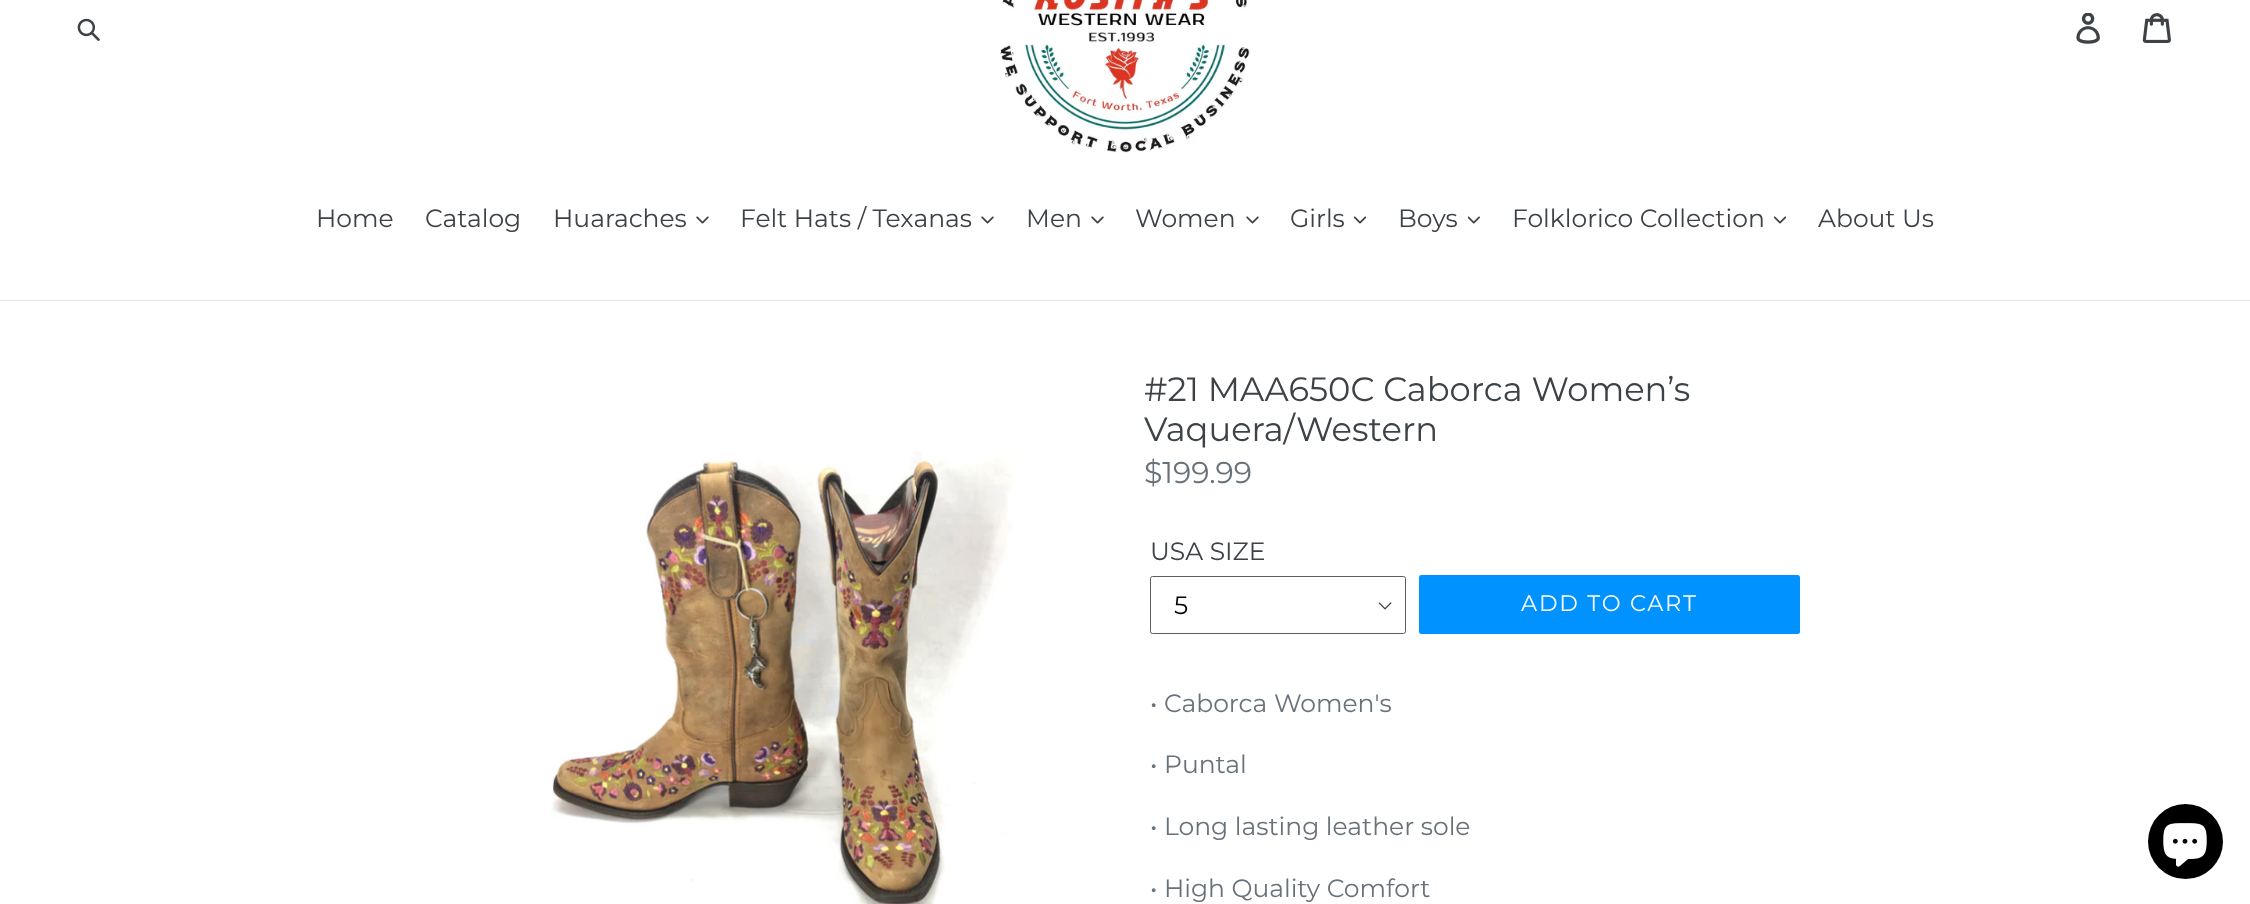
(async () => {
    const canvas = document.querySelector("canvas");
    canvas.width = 2250;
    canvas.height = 904;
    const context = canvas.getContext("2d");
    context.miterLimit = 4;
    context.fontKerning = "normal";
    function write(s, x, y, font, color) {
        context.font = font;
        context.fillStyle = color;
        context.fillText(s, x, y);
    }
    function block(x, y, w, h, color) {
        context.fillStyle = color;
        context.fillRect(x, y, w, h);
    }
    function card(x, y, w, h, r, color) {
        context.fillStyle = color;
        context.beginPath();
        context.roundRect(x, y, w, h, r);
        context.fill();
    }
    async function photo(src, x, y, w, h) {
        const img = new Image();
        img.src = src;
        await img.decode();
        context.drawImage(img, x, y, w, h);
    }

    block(0, 0, 2250, 904, "rgb(255, 255, 255)");
    await photo("media/1.png", 77, 18, 23, 23);
    await photo("media/2.png", 1000, 0, 250, 153);
    await photo("media/3.png", 2076, 13, 24, 31);
    await photo("media/4.png", 2142, 13, 29, 30);
    block(0, 300, 2250, 1, "rgb(232, 233, 235)");
    write("Home", 316, 227, "100 25px Montserrat", "rgb(61, 66, 70)");
    write("Catalog", 425, 227, "100 25px Montserrat", "rgb(61, 66, 70)");
    write("Huaraches", 553, 227, "100 25px Montserrat", "rgb(61, 66, 70)");
    await photo("media/5.png", 696, 216, 13, 8);
    write("Felt Hats / Texanas", 740, 227, "100 25px Montserrat", "rgb(61, 66, 70)");
    await photo("media/5.png", 981, 216, 13, 8);
    write("Men", 1026, 227, "100 25px Montserrat", "rgb(61, 66, 70)");
    await photo("media/5.png", 1091, 216, 13, 8);
    write("Women", 1135, 227, "100 25px Montserrat", "rgb(61, 66, 70)");
    await photo("media/5.png", 1246, 216, 13, 8);
    write("Girls", 1290, 227, "100 25px Montserrat", "rgb(61, 66, 70)");
    await photo("media/6.png", 1354, 216, 12, 8);
    write("Boys", 1398, 227, "100 25px Montserrat", "rgb(61, 66, 70)");
    await photo("media/7.png", 1468, 216, 12, 8);
    write("Folklorico Collection", 1512, 227, "100 25px Montserrat", "rgb(61, 66, 70)");
    await photo("media/6.png", 1774, 216, 12, 8);
    write("About Us", 1818, 227, "100 25px Montserrat", "rgb(61, 66, 70)");
    await photo("media/8.png", 551, 451, 464, 453);
    write("#21 MAA650C Caborca Women’s", 1144, 401, "100 33.75px Montserrat", "rgb(61, 66, 70)");
    write("Vaquera/Western", 1144, 441, "100 33.75px Montserrat", "rgb(61, 66, 70)");
    write("$199.99", 1144, 483, "100 30px Montserrat", "rgb(105, 114, 123)");
    write("USA SIZE", 1150, 560, "100 25px Montserrat", "rgb(61, 66, 70)");
    await photo("media/9.png", 1378, 602, 14, 8);
    context.beginPath();
    context.roundRect(1150.5, 576.5, 255, 57, 2);
    context.strokeStyle = "rgb(90, 94, 98)";
    context.stroke();
    write("5", 1174, 614, "100 25px Montserrat", "rgb(0, 0, 0)");
    card(1419, 575, 381, 59, 2.5, "rgb(0, 147, 255)");
    context.letterSpacing = "1.75px";
    write("ADD TO CART", 1521, 611, "100 22.5px Montserrat", "rgb(255, 255, 255)");
    context.letterSpacing = "0px";
    write("• Caborca Women's", 1150, 712, "100 25px Montserrat", "rgb(105, 114, 123)");
    write("• Puntal", 1150, 773, "100 25px Montserrat", "rgb(105, 114, 123)");
    write("• Long lasting leather sole", 1150, 835, "100 25px Montserrat", "rgb(105, 114, 123)");
    write("• High Quality Comfort", 1150, 897, "100 25px Montserrat", "rgb(105, 114, 123)");
    context.fillStyle = "rgb(0, 0, 0)";
    context.beginPath();
    context.arc(2185.5, 841.5, 37.5, 0, Math.PI * 2);
    context.fill();
    await photo("media/10.png", 2163, 823, 44, 44);
})();
